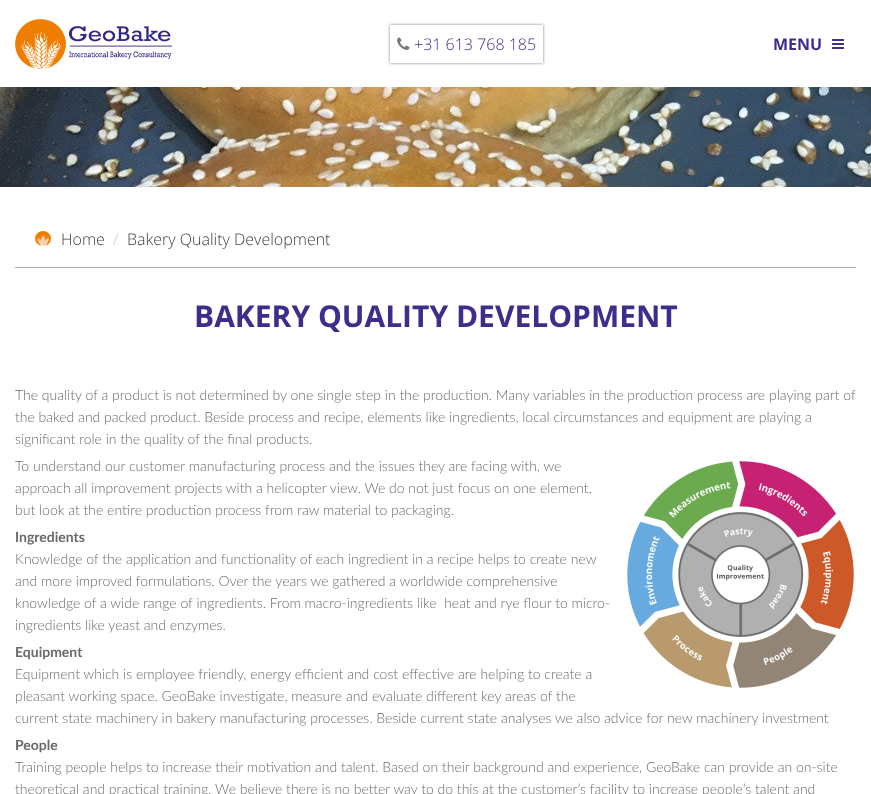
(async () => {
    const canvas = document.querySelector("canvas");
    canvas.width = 871;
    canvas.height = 794;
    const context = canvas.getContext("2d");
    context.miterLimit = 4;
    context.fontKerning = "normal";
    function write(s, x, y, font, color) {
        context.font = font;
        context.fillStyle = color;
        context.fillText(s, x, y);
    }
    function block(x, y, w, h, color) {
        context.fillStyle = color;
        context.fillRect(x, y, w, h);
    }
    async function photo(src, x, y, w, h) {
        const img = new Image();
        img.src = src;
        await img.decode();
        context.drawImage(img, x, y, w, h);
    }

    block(0, 0, 871, 794, "rgb(255, 255, 255)");
    await photo("media/1.png", 15, 19, 157, 50);
    context.save();
    context.beginPath();
    context.moveTo(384, 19);
    context.lineTo(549, 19);
    context.lineTo(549, 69);
    context.lineTo(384, 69);
    context.closePath();
    context.moveTo(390, 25);
    context.lineTo(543, 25);
    context.lineTo(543, 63);
    context.lineTo(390, 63);
    context.closePath();
    context.clip("evenodd");
    context.fillStyle = "rgb(123, 123, 123)";
    context.filter = "blur(1.5px)";
    context.beginPath();
    context.rect(390, 25, 153, 38);
    context.fill();
    context.filter = "none";
    context.restore();
    await photo("media/2.png", 397, 37, 13, 13);
    write("+31 613 768 185", 414, 50, "300 16px Open Sans", "rgb(61, 46, 139)");
    write("MENU", 773, 50, "bold 16px Open Sans", "rgb(61, 46, 139)");
    await photo("media/3.png", 832, 39, 12, 10);
    await photo("media/4.png", 0, 87, 871, 100);
    block(15, 267, 841, 1, "rgb(175, 175, 175)");
    await photo("media/5.png", 35, 231, 16, 15);
    write("Home", 61, 245, "300 16px Open Sans", "rgb(62, 62, 62)");
    write("/", 113, 245, "300 16px Open Sans", "rgb(204, 204, 204)");
    write("Bakery Quality Development", 127, 245, "300 16px Open Sans", "rgb(62, 62, 62)");
    write("BAKERY QUALITY DEVELOPMENT", 194, 327, "bold 30px Open Sans", "rgb(61, 46, 139)");
    write("The quality of a product is not determined by one single step in the production. Many variables in the production process are playing part of", 15, 400, "300 14px Lato", "rgb(103, 106, 108)");
    write("the baked and packed product. Beside process and recipe, elements like ingredients, local circumstances and equipment are playing a", 15, 422, "300 14px Lato", "rgb(103, 106, 108)");
    write("significant role in the quality of the final products.", 15, 444, "300 14px Lato", "rgb(103, 106, 108)");
    write("To understand our customer manufacturing process and the issues they are facing with, we", 15, 471, "300 14px Lato", "rgb(103, 106, 108)");
    write("approach all improvement projects with a helicopter view. We do not just focus on one element,", 15, 493, "300 14px Lato", "rgb(103, 106, 108)");
    write("but look at the entire production process from raw material to packaging.", 15, 515, "300 14px Lato", "rgb(103, 106, 108)");
    await photo("media/6.png", 627, 461, 227, 227);
    write("Ingredients", 15, 542, "bold 14px Lato", "rgb(103, 106, 108)");
    write("Knowledge of the application and functionality of each ingredient in a recipe helps to create new", 15, 564, "300 14px Lato", "rgb(103, 106, 108)");
    write("and more improved formulations. Over the years we gathered a worldwide comprehensive", 15, 586, "300 14px Lato", "rgb(103, 106, 108)");
    write("knowledge of a wide range of ingredients. From macro-ingredients like  heat and rye flour to micro-", 15, 608, "300 14px Lato", "rgb(103, 106, 108)");
    write("ingredients like yeast and enzymes.", 15, 630, "300 14px Lato", "rgb(103, 106, 108)");
    write("Equipment", 15, 657, "bold 14px Lato", "rgb(103, 106, 108)");
    write("Equipment which is employee friendly, energy efficient and cost effective are helping to create a", 15, 679, "300 14px Lato", "rgb(103, 106, 108)");
    write("pleasant working space. GeoBake investigate, measure and evaluate different key areas of the", 15, 701, "300 14px Lato", "rgb(103, 106, 108)");
    write("current state machinery in bakery manufacturing processes. Beside current state analyses we also advice for new machinery investment", 15, 723, "300 14px Lato", "rgb(103, 106, 108)");
    write("People", 15, 750, "bold 14px Lato", "rgb(103, 106, 108)");
    write("Training people helps to increase their motivation and talent. Based on their background and experience, GeoBake can provide an on-site", 15, 772, "300 14px Lato", "rgb(103, 106, 108)");
    write("theoretical and practical training. We believe there is no better way to do this at the customer’s facility to increase people’s talent and", 15, 794, "300 14px Lato", "rgb(103, 106, 108)");
})();
